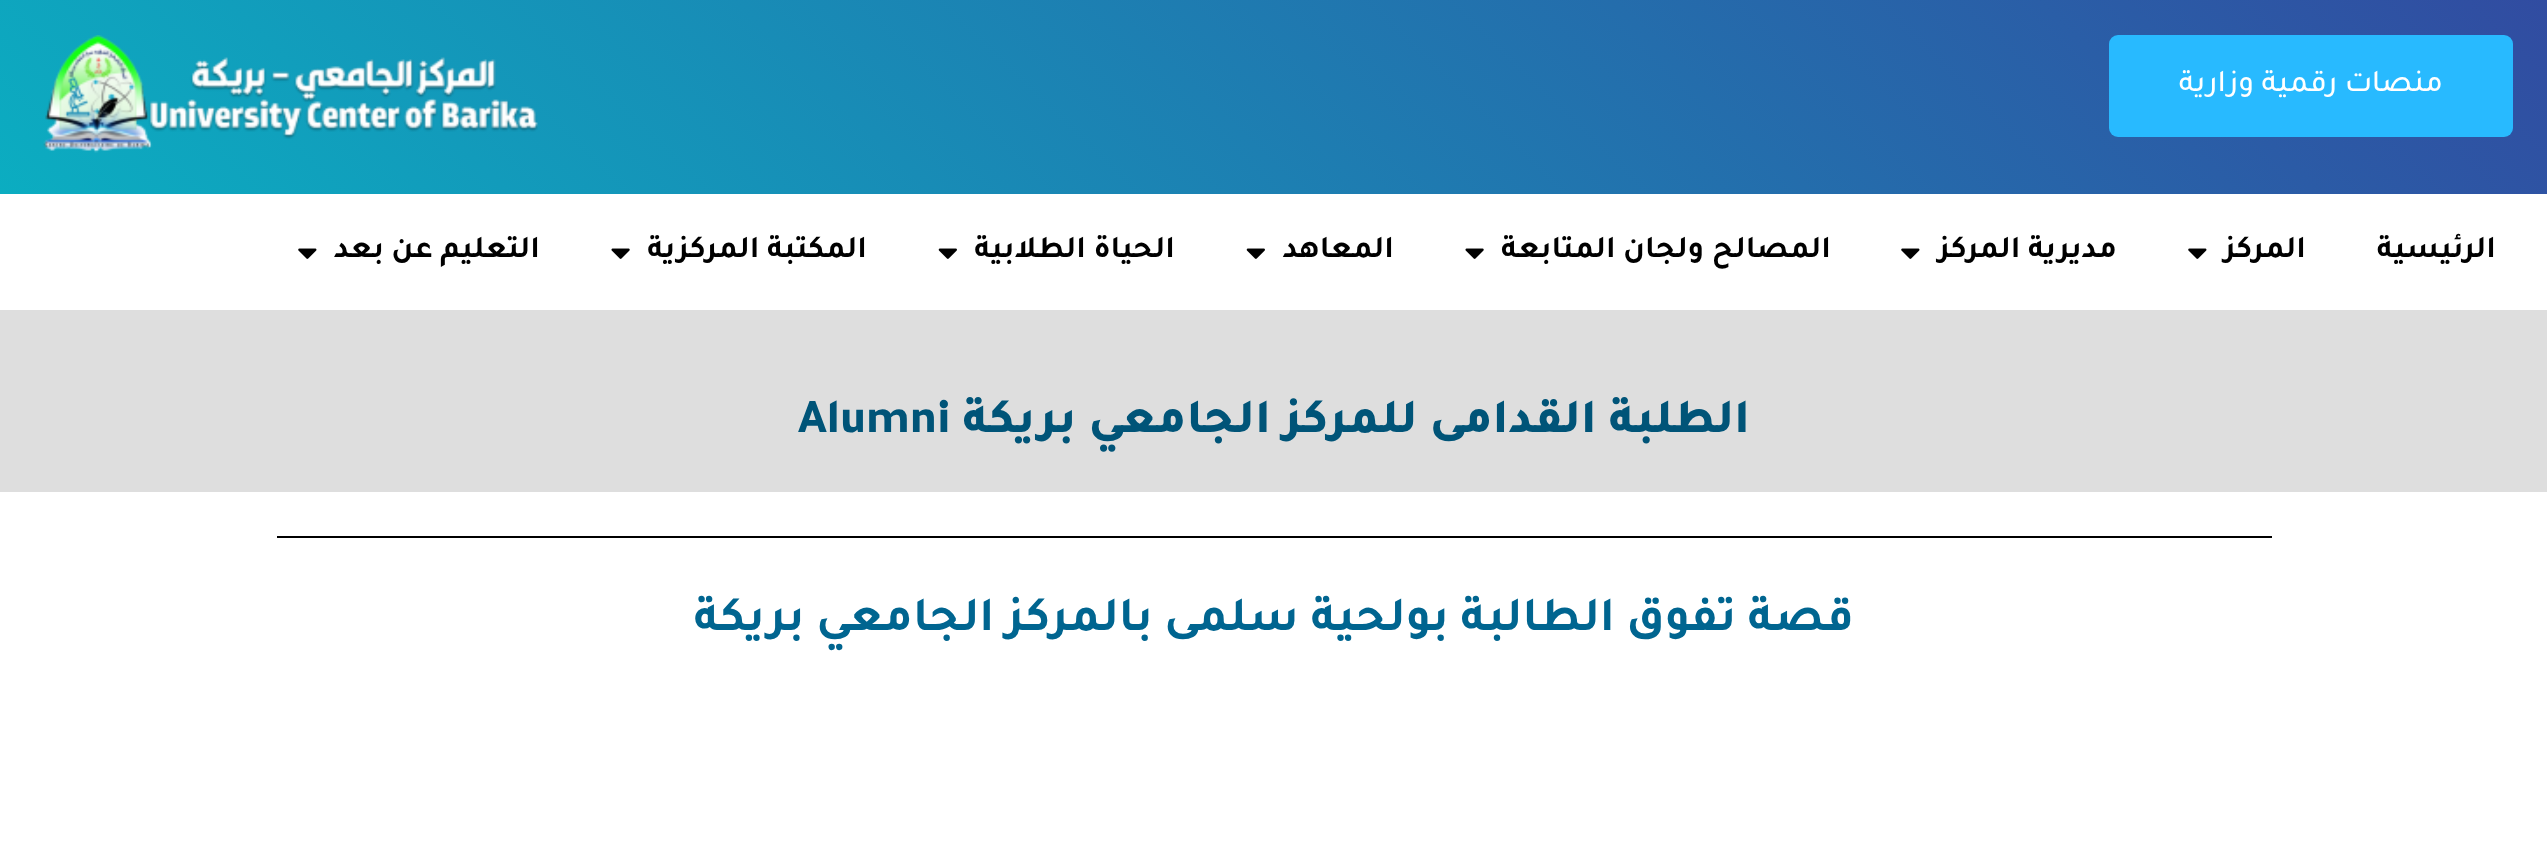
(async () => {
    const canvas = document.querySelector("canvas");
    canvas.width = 2547;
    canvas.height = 858;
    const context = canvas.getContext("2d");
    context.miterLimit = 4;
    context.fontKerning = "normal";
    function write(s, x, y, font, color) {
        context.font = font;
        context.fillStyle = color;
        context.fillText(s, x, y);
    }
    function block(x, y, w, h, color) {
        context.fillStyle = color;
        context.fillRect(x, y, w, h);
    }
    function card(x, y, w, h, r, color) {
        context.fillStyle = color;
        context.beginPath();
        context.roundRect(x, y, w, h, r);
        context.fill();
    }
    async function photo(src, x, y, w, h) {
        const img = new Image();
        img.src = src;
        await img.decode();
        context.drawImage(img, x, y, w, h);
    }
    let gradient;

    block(0, 0, 2547, 858, "rgb(255, 255, 255)");
    gradient = context.createLinearGradient(611, 784, 1937, -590);
    gradient.addColorStop(0, "rgb(11, 173, 193)");
    gradient.addColorStop(1, "rgb(49, 76, 161)");
    context.fillStyle = gradient;
    context.fillRect(0, 0, 2547, 194);
    card(2109, 35, 404, 102, 9, "rgb(40, 186, 255)");
    context.direction = "rtl";
    write("منصات رقمية وزارية", 2443, 91, "500 31.5px Tajawal", "rgb(255, 255, 255)");
    await photo("media/1.png", 43, 35, 495, 118);
    write("الرئيسية", 2496, 257, "bold 31.5px Tajawal", "rgb(0, 0, 0)");
    write("المركز", 2306, 257, "bold 31.5px Tajawal", "rgb(0, 0, 0)");
    await photo("media/2.png", 2188, 248, 19, 11);
    write("مديرية المركز", 2117, 257, "bold 31.5px Tajawal", "rgb(0, 0, 0)");
    await photo("media/2.png", 1901, 248, 19, 11);
    write("المصالح ولجان المتابعة", 1831, 257, "bold 31.5px Tajawal", "rgb(0, 0, 0)");
    await photo("media/3.png", 1465, 248, 19, 11);
    write("المعاهد", 1394, 257, "bold 31.5px Tajawal", "rgb(0, 0, 0)");
    await photo("media/4.png", 1246, 248, 19, 11);
    write("الحياة الطلابية", 1175, 257, "bold 31.5px Tajawal", "rgb(0, 0, 0)");
    await photo("media/4.png", 938, 248, 19, 11);
    write("المكتبة المركزية", 867, 257, "bold 31.5px Tajawal", "rgb(0, 0, 0)");
    await photo("media/3.png", 611, 248, 19, 11);
    write("التعليم عن بعد", 540, 257, "bold 31.5px Tajawal", "rgb(0, 0, 0)");
    await photo("media/2.png", 298, 248, 19, 11);
    block(0, 310, 2547, 182, "rgb(222, 222, 222)");
    write("الطلبة القدامى للمركز الجامعي بريكة", 1750, 432, "800 49px Tajawal", "rgb(0, 84, 120)");
    context.direction = "ltr";
    write("Alumni", 798, 432, "800 49px Tajawal", "rgb(0, 84, 120)");
    block(277, 536, 1995, 2, "rgb(0, 0, 0)");
    context.direction = "rtl";
    write("قصة تفوق الطالبة بولحية سلمى بالمركز الجامعي بريكة", 1854, 630, "bold 49px Tajawal", "rgb(0, 101, 144)");
})();
